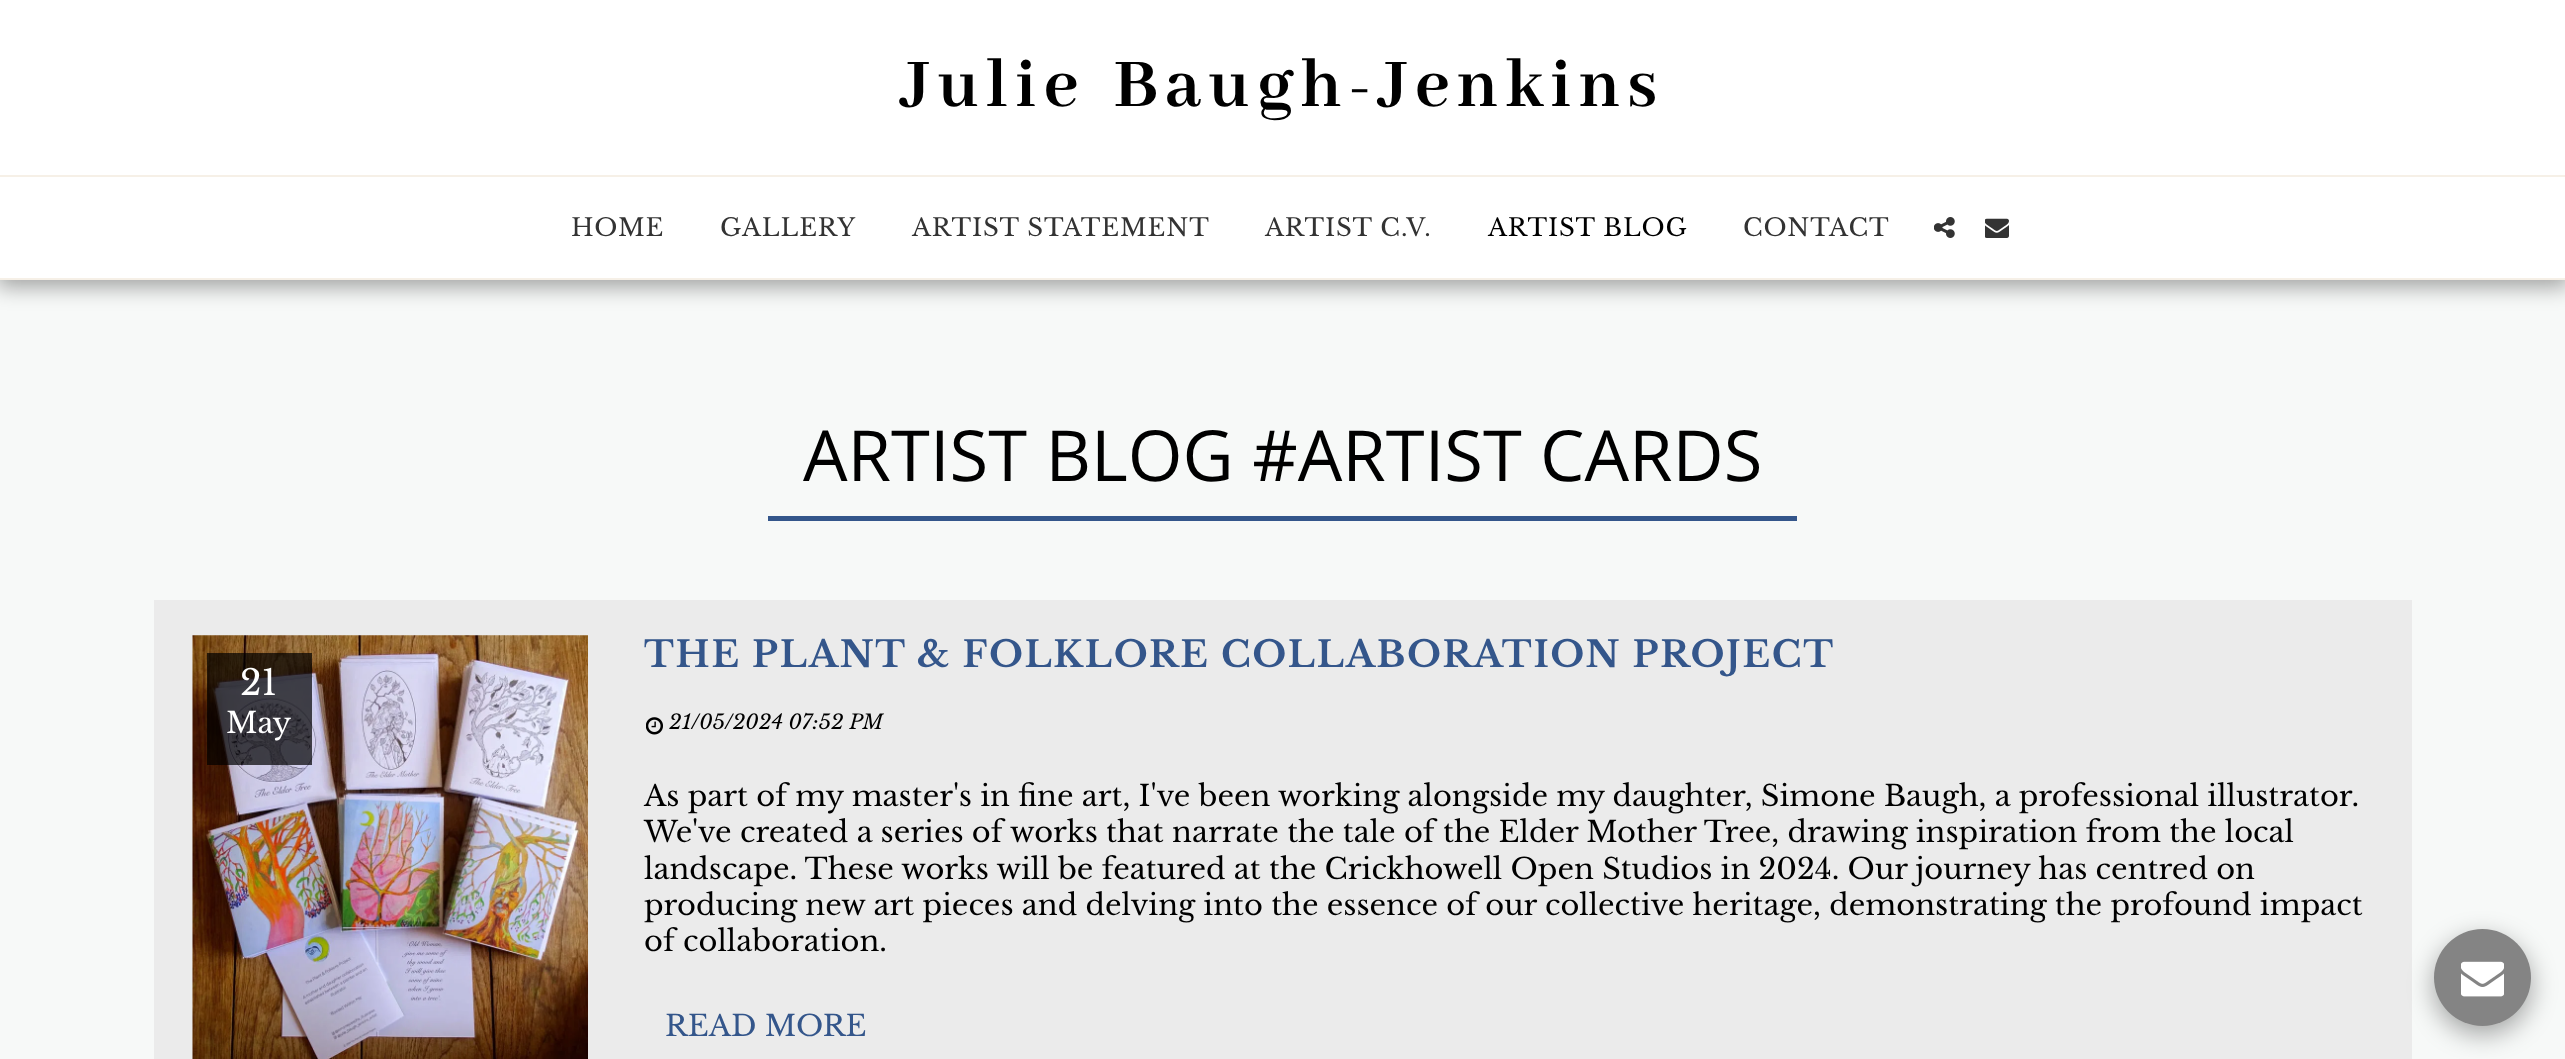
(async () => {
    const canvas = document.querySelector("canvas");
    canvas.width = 2565;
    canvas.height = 1059;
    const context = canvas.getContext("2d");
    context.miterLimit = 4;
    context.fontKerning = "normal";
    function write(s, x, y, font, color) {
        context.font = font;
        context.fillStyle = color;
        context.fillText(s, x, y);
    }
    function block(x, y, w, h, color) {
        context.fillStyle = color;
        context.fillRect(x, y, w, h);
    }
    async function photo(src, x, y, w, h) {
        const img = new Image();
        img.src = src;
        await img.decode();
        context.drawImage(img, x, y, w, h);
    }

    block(0, 0, 2565, 1059, "rgb(247, 249, 248)");
    context.fillStyle = "rgba(0, 0, 0, 0.35)";
    context.filter = "blur(10.5px)";
    context.beginPath();
    context.rect(-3, 0, 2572, 287);
    context.fill();
    context.filter = "none";
    block(0, 278, 2565, 2, "rgb(246, 240, 231)");
    block(0, 0, 2565, 175, "rgb(255, 255, 255)");
    context.letterSpacing = "7px";
    context.wordSpacing = "7px";
    write("Julie Baugh-Jenkins", 901, 106, "bold 75.25px Abhaya Libre", "rgb(0, 0, 0)");
    block(0, 177, 2565, 101, "rgb(255, 255, 255)");
    block(0, 175, 2565, 2, "rgb(246, 240, 231)");
    context.letterSpacing = "0.9px";
    context.wordSpacing = "0px";
    write("HOME", 571, 236, "24.5px Libre Baskerville", "rgb(51, 51, 51)");
    write("GALLERY", 720, 236, "24.5px Libre Baskerville", "rgb(51, 51, 51)");
    write("ARTIST STATEMENT", 912, 236, "24.5px Libre Baskerville", "rgb(51, 51, 51)");
    write("ARTIST C.V.", 1265, 236, "24.5px Libre Baskerville", "rgb(51, 51, 51)");
    write("ARTIST BLOG", 1488, 236, "24.5px Libre Baskerville", "rgb(0, 0, 0)");
    write("CONTACT", 1743, 236, "24.5px Libre Baskerville", "rgb(51, 51, 51)");
    await photo("media/1.png", 1934, 217, 21, 21);
    await photo("media/2.png", 1985, 218, 24, 20);
    block(768, 516, 1029, 5, "rgb(52, 86, 139)");
    context.letterSpacing = "0px";
    write("ARTIST BLOG #ARTIST CARDS", 803, 481, "70.5px Open Sans", "rgb(0, 0, 0)");
    block(154, 600, 2258, 459, "rgb(235, 235, 235)");
    await photo("media/3.png", 192, 635, 396, 424);
    block(207, 653, 105, 112, "rgba(0, 0, 0, 0.7)");
    write("21", 240, 695, "35px Libre Baskerville", "rgb(255, 255, 255)");
    write("May", 226, 733, "28.88px Libre Baskerville", "rgb(255, 255, 255)");
    context.letterSpacing = "1.75px";
    write("THE PLANT & FOLKLORE COLLABORATION PROJECT", 644, 667, "bold 36.1px Libre Baskerville", "rgb(52, 86, 139)");
    await photo("media/4.png", 646, 717, 17, 18);
    context.letterSpacing = "0px";
    write("21/05/2024 07:52 PM", 669, 729, "italic 20.25px Libre Baskerville", "rgb(0, 0, 0)");
    write("As part of my master's in fine art, I've been working alongside my daughter, Simone Baugh, a professional illustrator.", 644, 806, "28.88px Libre Baskerville", "rgb(0, 0, 0)");
    write("We've created a series of works that narrate the tale of the Elder Mother Tree, drawing inspiration from the local", 644, 842, "28.88px Libre Baskerville", "rgb(0, 0, 0)");
    write("landscape. These works will be featured at the Crickhowell Open Studios in 2024. Our journey has centred on", 644, 879, "28.88px Libre Baskerville", "rgb(0, 0, 0)");
    write("producing new art pieces and delving into the essence of our collective heritage, demonstrating the profound impact", 644, 915, "28.88px Libre Baskerville", "rgb(0, 0, 0)");
    write("of collaboration.", 644, 951, "28.88px Libre Baskerville", "rgb(0, 0, 0)");
    write("READ MORE", 665, 1036, "28.88px Libre Baskerville", "rgb(52, 86, 139)");
    context.fillStyle = "rgba(0, 0, 0, 0.35)";
    context.filter = "blur(13px)";
    context.beginPath();
    context.roundRect(2434, 938, 97, 96, 48);
    context.fill();
    context.filter = "none";
    context.fillStyle = "rgb(132, 132, 132)";
    context.beginPath();
    context.arc(2482.5, 977.5, 48.5, 0, Math.PI * 2);
    context.fill();
    await photo("media/5.png", 2461, 961, 43, 36);
})();
